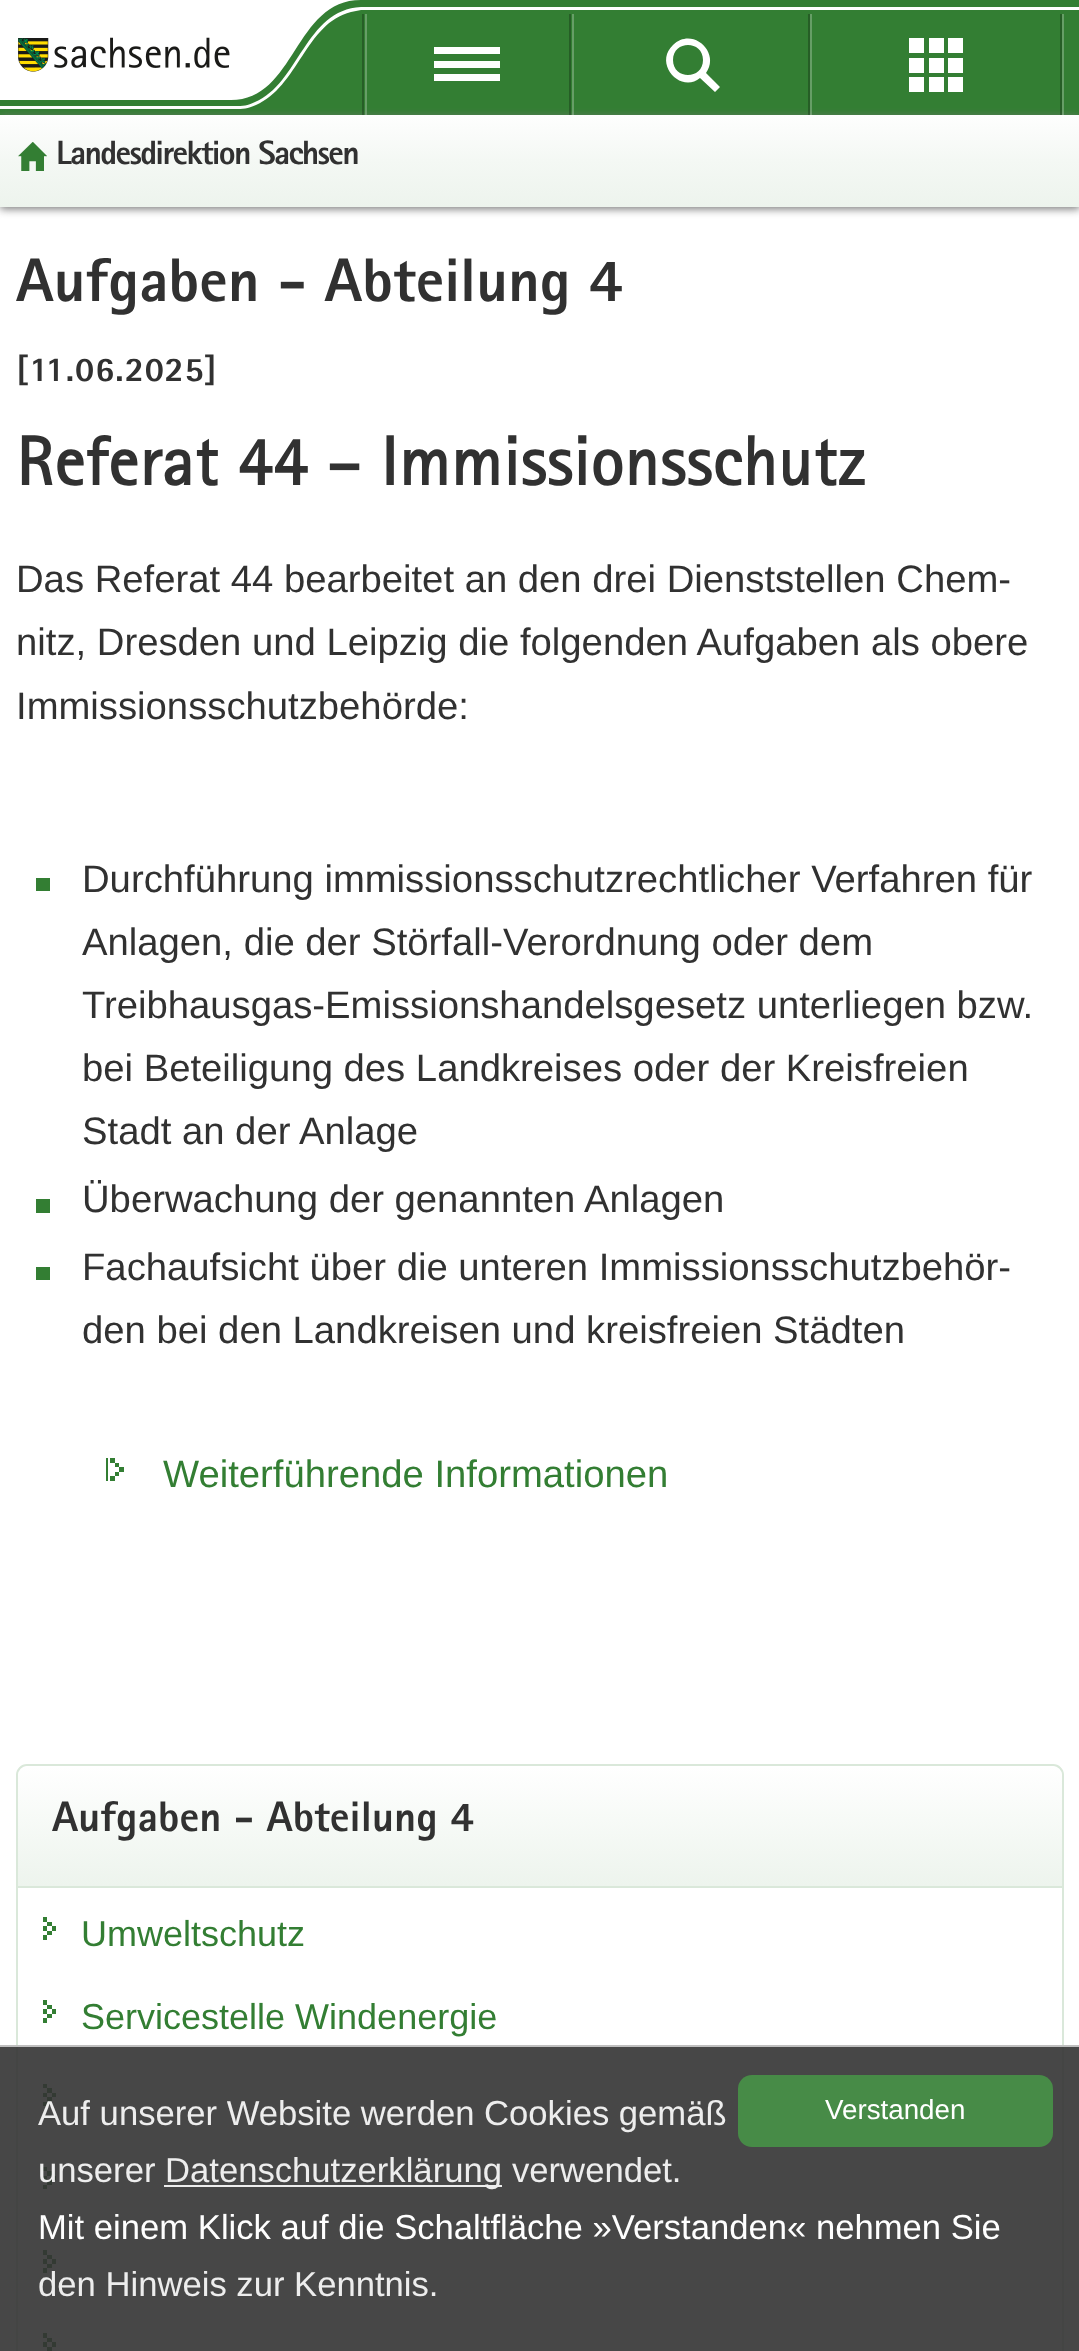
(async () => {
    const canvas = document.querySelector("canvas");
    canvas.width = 1079;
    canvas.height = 2351;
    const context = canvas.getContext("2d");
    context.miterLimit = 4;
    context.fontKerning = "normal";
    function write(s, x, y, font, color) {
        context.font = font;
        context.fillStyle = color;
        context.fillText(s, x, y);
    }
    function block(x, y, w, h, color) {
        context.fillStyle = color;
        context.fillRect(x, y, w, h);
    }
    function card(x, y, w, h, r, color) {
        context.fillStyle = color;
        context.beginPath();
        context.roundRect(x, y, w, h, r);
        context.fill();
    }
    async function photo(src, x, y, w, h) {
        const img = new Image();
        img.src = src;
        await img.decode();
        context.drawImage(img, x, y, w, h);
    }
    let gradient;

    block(0, 0, 1079, 2351, "rgb(255, 255, 255)");
    block(0, 0, 1079, 115, "rgb(51, 126, 51)");
    context.fillStyle = "rgb(255, 255, 255)";
    context.beginPath();
    context.moveTo(361, 7);
    context.bezierCurveTo(305, 10, 299, 84, 255, 102);
    context.bezierCurveTo(247, 106, 244, 106, 234, 106);
    context.lineTo(-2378, 106);
    context.lineTo(-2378, 109);
    context.lineTo(234, 109);
    context.bezierCurveTo(244, 109, 247, 109, 256, 105);
    context.bezierCurveTo(298, 87, 306, 23, 351, 12);
    context.lineTo(361, 10);
    context.lineTo(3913, 10);
    context.lineTo(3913, 7);
    context.closePath();
    context.fill();
    context.beginPath();
    context.moveTo(231, 100);
    context.bezierCurveTo(296, 100, 294, 0, 361, 0);
    context.lineTo(-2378, 0);
    context.lineTo(-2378, 100);
    context.closePath();
    context.fill();
    await photo("media/1.png", 18, 37, 212, 35);
    context.fillStyle = "rgb(121, 121, 121)";
    context.filter = "blur(4.5px)";
    context.beginPath();
    context.rect(0, 117, 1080, 92);
    context.fill();
    context.filter = "none";
    block(362, 14, 2, 101, "rgba(0, 0, 0, 0.25)");
    block(569, 14, 2, 101, "rgba(0, 0, 0, 0.25)");
    block(365, 14, 2, 101, "rgba(255, 255, 255, 0.25)");
    block(434, 47, 66, 7, "rgb(255, 255, 255)");
    block(434, 61, 66, 7, "rgb(255, 255, 255)");
    block(434, 74, 66, 7, "rgb(255, 255, 255)");
    context.fillStyle = "rgba(255, 255, 255, 0.25)";
    context.beginPath();
    context.moveTo(574, 115);
    context.lineTo(1064, 115);
    context.lineTo(1064, 14);
    context.lineTo(1062, 14);
    context.lineTo(1062, 115);
    context.closePath();
    context.fill();
    block(1060, 14, 2, 101, "rgba(0, 0, 0, 0.25)");
    block(572, 14, 2, 101, "rgba(255, 255, 255, 0.25)");
    context.fillStyle = "rgb(255, 255, 255)";
    context.beginPath();
    context.moveTo(720, 87);
    context.lineTo(706, 73);
    context.bezierCurveTo(721, 52, 692, 26, 673, 45);
    context.bezierCurveTo(653, 64, 681, 94, 700, 78);
    context.lineTo(715, 92);
    context.closePath();
    context.moveTo(673, 60);
    context.bezierCurveTo(673, 40, 703, 40, 703, 60);
    context.bezierCurveTo(703, 80, 673, 80, 673, 60);
    context.closePath();
    context.fill();
    context.fillStyle = "rgba(0, 0, 0, 0.25)";
    context.beginPath();
    context.moveTo(808, 14);
    context.lineTo(808, 115);
    context.lineTo(1058, 115);
    context.lineTo(810, 115);
    context.lineTo(810, 14);
    context.closePath();
    context.fill();
    block(909, 38, 15, 15, "rgb(255, 255, 255)");
    block(929, 38, 15, 15, "rgb(255, 255, 255)");
    block(948, 38, 15, 15, "rgb(255, 255, 255)");
    block(909, 77, 15, 15, "rgb(255, 255, 255)");
    block(929, 77, 15, 15, "rgb(255, 255, 255)");
    block(948, 77, 15, 15, "rgb(255, 255, 255)");
    block(909, 58, 15, 15, "rgb(255, 255, 255)");
    block(929, 58, 15, 15, "rgb(255, 255, 255)");
    block(948, 58, 15, 15, "rgb(255, 255, 255)");
    block(810, 14, 2, 101, "rgba(255, 255, 255, 0.25)");
    gradient = context.createLinearGradient(540, 115, 540, 207);
    gradient.addColorStop(0, "rgb(254, 254, 254)");
    gradient.addColorStop(0.5, "rgb(244, 248, 244)");
    gradient.addColorStop(1, "rgb(237, 244, 237)");
    context.fillStyle = gradient;
    context.fillRect(0, 115, 1079, 92);
    await photo("media/2.png", 18, 142, 29, 29);
    context.letterSpacing = "-1.7px";
    write("Landesdirektion Sachsen", 56, 164, "800 33.75px 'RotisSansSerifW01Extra'", "rgb(49, 49, 49)");
    context.letterSpacing = "0px";
    write("Aufgaben - Abteilung 4", 16, 301, "800 61.5px 'RotisSansSerifW01Extra'", "rgb(49, 49, 49)");
    context.letterSpacing = "1px";
    write("[11.06.2025]", 16, 381, "800 34.5px 'RotisSansSerifW01Extra'", "rgb(49, 49, 49)");
    context.letterSpacing = "0.7px";
    write("Referat 44 – Immissionsschutz", 16, 485, "bold 69.25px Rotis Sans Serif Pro", "rgb(49, 49, 49)");
    context.letterSpacing = "0px";
    write("Das Referat 44 bearbeitet an den drei Dienststellen Chem-", 16, 592, "38.25px Liberation Sans", "rgb(49, 49, 49)");
    write("nitz, Dresden und Leipzig die folgenden Aufgaben als obere", 16, 655, "38.25px Liberation Sans", "rgb(49, 49, 49)");
    write("Immissionsschutzbehörde:", 16, 719, "38.25px Liberation Sans", "rgb(49, 49, 49)");
    block(36, 878, 14, 13, "rgb(51, 126, 51)");
    write("Durchführung immissionsschutzrechtlicher Verfahren für", 82, 892, "38.25px Liberation Sans", "rgb(49, 49, 49)");
    write("Anlagen, die der Störfall-Verordnung oder dem", 82, 955, "38.25px Liberation Sans", "rgb(49, 49, 49)");
    write("Treibhausgas-Emissionshandelsgesetz unterliegen bzw.", 82, 1018, "38.25px Liberation Sans", "rgb(49, 49, 49)");
    write("bei Beteiligung des Landkreises oder der Kreisfreien", 82, 1081, "38.25px Liberation Sans", "rgb(49, 49, 49)");
    write("Stadt an der Anlage", 82, 1144, "38.25px Liberation Sans", "rgb(49, 49, 49)");
    block(36, 1199, 14, 14, "rgb(51, 126, 51)");
    write("Überwachung der genannten Anlagen", 82, 1212, "38.25px Liberation Sans", "rgb(49, 49, 49)");
    block(36, 1267, 14, 13, "rgb(51, 126, 51)");
    write("Fachaufsicht über die unteren Immissionsschutzbehör-", 82, 1280, "38.25px Liberation Sans", "rgb(49, 49, 49)");
    write("den bei den Landkreisen und kreisfreien Städten", 82, 1343, "38.25px Liberation Sans", "rgb(49, 49, 49)");
    await photo("media/3.png", 106, 1458, 18, 23);
    write("Weiterführende Informationen", 163, 1487, "38.25px Liberation Sans", "rgb(51, 126, 51)");
    context.beginPath();
    context.moveTo(27, 1765);
    context.lineTo(1053, 1765);
    context.bezierCurveTo(1058.5, 1765, 1063, 1769.5, 1063, 1775);
    context.lineTo(1063, 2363);
    context.lineTo(17, 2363);
    context.lineTo(17, 1775);
    context.bezierCurveTo(17, 1769.5, 21.5, 1765, 27, 1765);
    context.closePath();
    context.strokeStyle = "rgb(218, 232, 218)";
    context.lineWidth = 2;
    context.stroke();
    gradient = context.createLinearGradient(540, 1766, 540, 1886);
    gradient.addColorStop(0, "rgb(255, 255, 255)");
    gradient.addColorStop(1, "rgb(237, 244, 237)");
    context.fillStyle = gradient;
    context.beginPath();
    context.roundRect(18, 1766, 1044, 120, [11, 11, 0, 0]);
    context.fill();
    block(18, 1886, 1044, 2, "rgb(218, 232, 218)");
    write("Aufgaben - Abteilung 4", 52, 1831, "800 42.75px 'RotisSansSerifW01Extra'", "rgb(49, 49, 49)");
    await photo("media/4.png", 43, 1917, 13, 23);
    write("Umweltschutz", 81, 1946, "36px Liberation Sans", "rgb(51, 126, 51)");
    await photo("media/4.png", 43, 2000, 13, 23);
    write("Servicestelle Windenergie", 81, 2029, "36px Liberation Sans", "rgb(51, 126, 51)");
    await photo("media/5.png", 43, 2084, 13, 22);
    await photo("media/5.png", 43, 2167, 13, 22);
    await photo("media/4.png", 43, 2250, 13, 23);
    await photo("media/6.png", 43, 2333, 13, 18);
    block(0, 2045, 1079, 306, "rgba(51, 51, 51, 0.9)");
    block(0, 2045, 1079, 2, "rgba(204, 204, 204, 0.9)");
    card(738, 2075, 315, 72, 14, "rgb(71, 139, 71)");
    write("Verstanden", 825, 2119, "27.75px Liberation Sans", "rgb(255, 255, 255)");
    write("Auf unserer Website werden Cookies gemäß", 38, 2125, "34.65px Liberation Sans", "rgb(237, 237, 237)");
    write("unserer", 38, 2182, "34.65px Liberation Sans", "rgb(237, 237, 237)");
    block(164, 2185, 338, 2, "rgba(255, 255, 255, 0.9)");
    write("Datenschutzerklärung", 165, 2182, "34.65px Liberation Sans", "rgb(237, 237, 237)");
    write("verwendet.", 512, 2182, "34.65px Liberation Sans", "rgb(237, 237, 237)");
    write("Mit einem Klick auf die Schaltfläche »Verstanden« nehmen Sie", 38, 2239, "34.65px Liberation Sans", "rgb(255, 255, 255)");
    write("den Hinweis zur Kenntnis.", 38, 2296, "34.65px Liberation Sans", "rgb(237, 237, 237)");
})();
